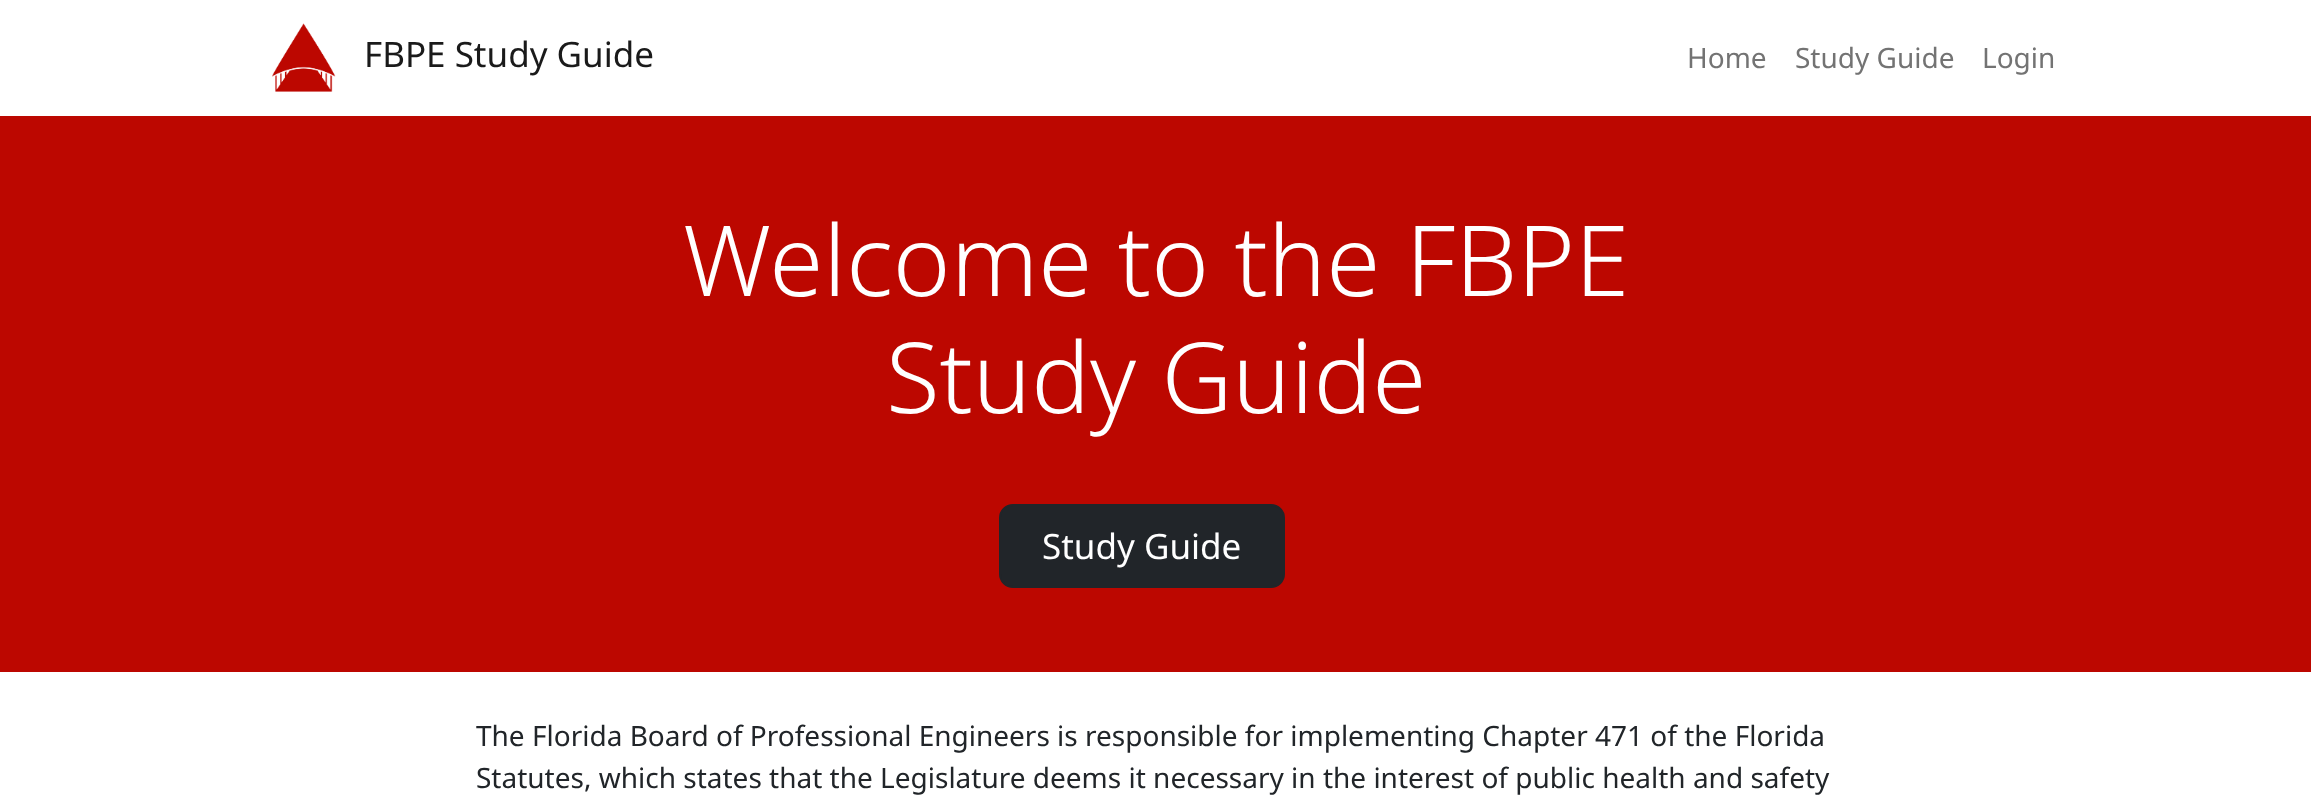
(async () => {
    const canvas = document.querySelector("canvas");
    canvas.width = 2311;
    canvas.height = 797;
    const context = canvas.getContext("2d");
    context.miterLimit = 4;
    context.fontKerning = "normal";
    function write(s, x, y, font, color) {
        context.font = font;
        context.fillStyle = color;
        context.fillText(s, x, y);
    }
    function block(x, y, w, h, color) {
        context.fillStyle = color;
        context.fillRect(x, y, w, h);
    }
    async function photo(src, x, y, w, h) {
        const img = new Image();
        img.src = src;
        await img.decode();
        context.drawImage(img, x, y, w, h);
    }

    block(0, 0, 2311, 797, "rgb(255, 255, 255)");
    await photo("media/1.png", 272, 23, 64, 69);
    write("FBPE Study Guide", 364, 67, "35px Noto Sans", "rgb(26, 26, 26)");
    write("Home", 1687, 68, "28px Noto Sans", "rgb(115, 115, 115)");
    write("Study Guide", 1795, 68, "28px Noto Sans", "rgb(115, 115, 115)");
    write("Login", 1982, 68, "28px Noto Sans", "rgb(115, 115, 115)");
    block(0, 116, 2311, 556, "rgb(188, 7, 0)");
    write("Welcome to the FBPE", 683, 296, "300 98px Noto Sans", "rgb(255, 255, 255)");
    write("Study Guide", 886, 413, "300 98px Noto Sans", "rgb(255, 255, 255)");
    context.fillStyle = "rgb(33, 37, 41)";
    context.beginPath();
    context.roundRect(1000, 505, 284, 82, 13);
    context.fill();
    context.strokeStyle = "rgb(33, 37, 41)";
    context.lineWidth = 2;
    context.stroke();
    write("Study Guide", 1042, 559, "35px Noto Sans", "rgb(255, 255, 255)");
    write("The Florida Board of Professional Engineers is responsible for implementing Chapter 471 of the Florida", 476, 746, "28px Noto Sans", "rgb(33, 37, 41)");
    write("Statutes, which states that the Legislature deems it necessary in the interest of public health and safety", 476, 788, "28px Noto Sans", "rgb(33, 37, 41)");
})();
